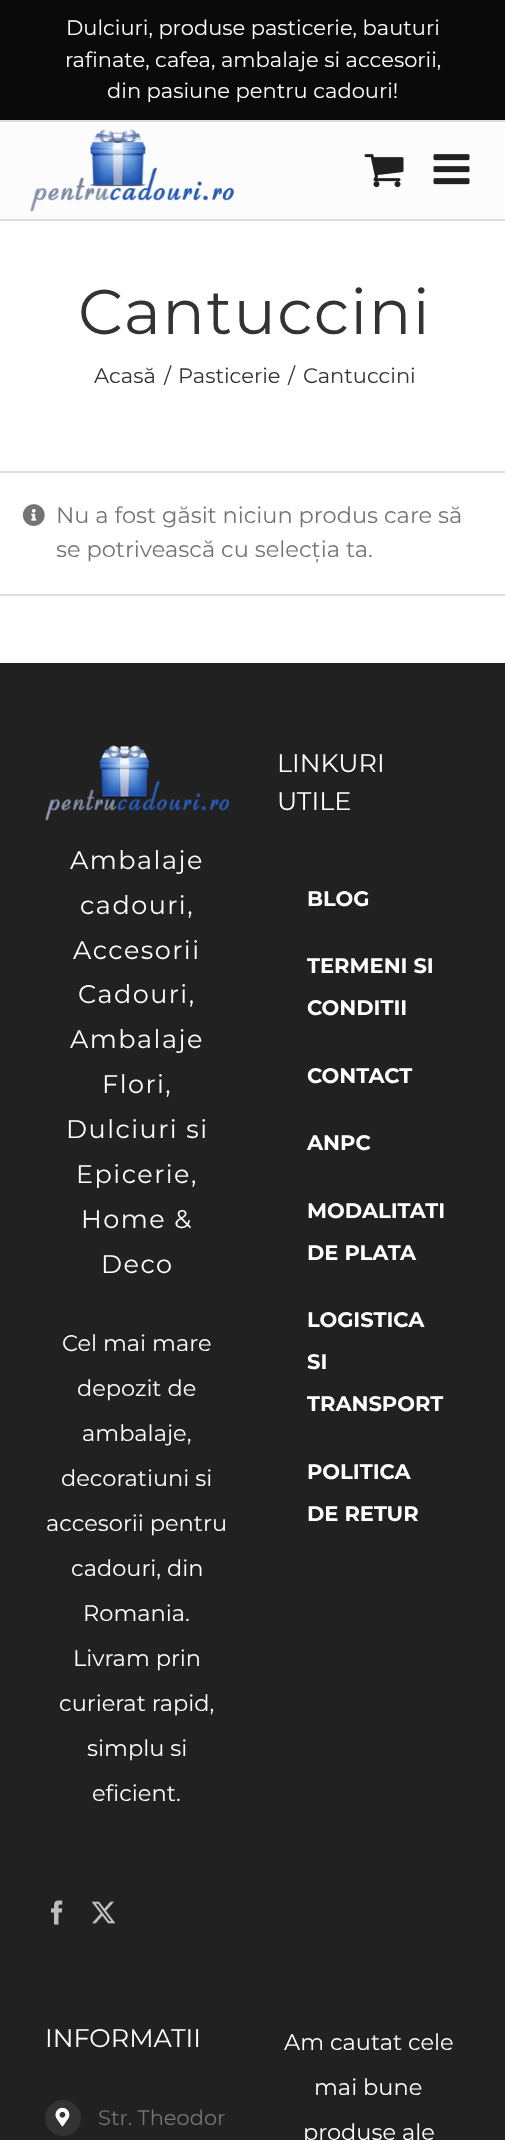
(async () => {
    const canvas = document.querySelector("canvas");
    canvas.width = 505;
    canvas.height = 2140;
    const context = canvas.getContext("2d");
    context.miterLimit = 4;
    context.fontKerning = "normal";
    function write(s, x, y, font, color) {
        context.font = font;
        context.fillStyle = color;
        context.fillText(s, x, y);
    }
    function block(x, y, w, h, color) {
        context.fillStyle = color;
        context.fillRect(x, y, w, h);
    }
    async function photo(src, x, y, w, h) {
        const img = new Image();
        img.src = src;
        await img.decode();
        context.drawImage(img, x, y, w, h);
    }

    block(0, 0, 505, 2140, "rgb(255, 255, 255)");
    block(0, 0, 505, 120, "rgb(10, 10, 10)");
    block(0, 120, 505, 2, "rgb(221, 221, 221)");
    write("Dulciuri, produse pasticerie, bauturi", 66, 35, "21px Montserrat", "rgb(255, 255, 255)");
    write("rafinate, cafea, ambalaje si accesorii,", 65, 67, "21px Montserrat", "rgb(255, 255, 255)");
    write("din pasiune pentru cadouri!", 107, 98, "21px Montserrat", "rgb(255, 255, 255)");
    block(0, 122, 505, 97, "rgb(252, 252, 252)");
    block(0, 219, 505, 2, "rgb(221, 221, 221)");
    await photo("media/1.png", 30, 129, 204, 83);
    await photo("media/2.png", 364, 154, 40, 34);
    await photo("media/3.png", 433, 154, 37, 31);
    context.letterSpacing = "1.5px";
    write("Cantuccini", 78, 334, "63px Montserrat", "rgb(51, 51, 51)");
    context.letterSpacing = "0px";
    write("Acasă", 94, 383, "21px Montserrat", "rgb(51, 51, 51)");
    write("/", 164, 383, "21px Montserrat", "rgb(51, 51, 51)");
    write("Pasticerie", 178, 383, "21px Montserrat", "rgb(51, 51, 51)");
    write("/", 288, 383, "21px Montserrat", "rgb(51, 51, 51)");
    write("Cantuccini", 303, 383, "21px Montserrat", "rgb(51, 51, 51)");
    block(0, 471, 505, 2, "rgb(224, 222, 222)");
    block(0, 594, 505, 2, "rgb(224, 222, 222)");
    await photo("media/4.png", 22, 504, 23, 22);
    write("Nu a fost găsit niciun produs care să", 56, 523, "22.5px Montserrat", "rgb(116, 116, 116)");
    write("se potrivească cu selecția ta.", 56, 557, "22.5px Montserrat", "rgb(116, 116, 116)");
    block(0, 663, 505, 1477, "rgb(33, 33, 33)");
    await photo("media/5.png", 45, 745, 184, 76);
    context.letterSpacing = "1.5px";
    write("Ambalaje", 70, 869, "25.5px Montserrat", "rgb(255, 255, 255)");
    write("cadouri,", 80, 914, "25.5px Montserrat", "rgb(255, 255, 255)");
    write("Accesorii", 73, 959, "25.5px Montserrat", "rgb(255, 255, 255)");
    write("Cadouri,", 78, 1003, "25.5px Montserrat", "rgb(255, 255, 255)");
    write("Ambalaje", 70, 1048, "25.5px Montserrat", "rgb(255, 255, 255)");
    write("Flori,", 102, 1093, "25.5px Montserrat", "rgb(255, 255, 255)");
    write("Dulciuri si", 66, 1138, "25.5px Montserrat", "rgb(255, 255, 255)");
    write("Epicerie,", 76, 1183, "25.5px Montserrat", "rgb(255, 255, 255)");
    write("Home &", 81, 1228, "25.5px Montserrat", "rgb(255, 255, 255)");
    write("Deco", 101, 1273, "25.5px Montserrat", "rgb(255, 255, 255)");
    context.letterSpacing = "0px";
    write("Cel mai mare", 62, 1351, "22.5px Montserrat", "rgb(255, 255, 255)");
    write("depozit de", 77, 1396, "22.5px Montserrat", "rgb(255, 255, 255)");
    write("ambalaje,", 82, 1441, "22.5px Montserrat", "rgb(255, 255, 255)");
    write("decoratiuni si", 61, 1486, "22.5px Montserrat", "rgb(255, 255, 255)");
    write("accesorii pentru", 46, 1531, "22.5px Montserrat", "rgb(255, 255, 255)");
    write("cadouri, din", 71, 1576, "22.5px Montserrat", "rgb(255, 255, 255)");
    write("Romania.", 83, 1621, "22.5px Montserrat", "rgb(255, 255, 255)");
    write("Livram prin", 73, 1666, "22.5px Montserrat", "rgb(255, 255, 255)");
    write("curierat rapid,", 59, 1711, "22.5px Montserrat", "rgb(255, 255, 255)");
    write("simplu si", 87, 1756, "22.5px Montserrat", "rgb(255, 255, 255)");
    write("eficient.", 92, 1801, "22.5px Montserrat", "rgb(255, 255, 255)");
    await photo("media/6.png", 51, 1900, 12, 25);
    await photo("media/7.png", 91, 1901, 25, 23);
    write("LINKURI", 277, 772, "25.5px Montserrat", "rgb(255, 255, 255)");
    write("UTILE", 277, 810, "25.5px Montserrat", "rgb(255, 255, 255)");
    write("BLOG", 307, 906, "bold 21px Montserrat", "rgb(255, 255, 255)");
    write("TERMENI SI", 307, 973, "bold 21px Montserrat", "rgb(255, 255, 255)");
    write("CONDITII", 307, 1015, "bold 21px Montserrat", "rgb(255, 255, 255)");
    write("CONTACT", 307, 1083, "bold 21px Montserrat", "rgb(255, 255, 255)");
    write("ANPC", 307, 1150, "bold 21px Montserrat", "rgb(255, 255, 255)");
    write("MODALITATI", 307, 1218, "bold 21px Montserrat", "rgb(255, 255, 255)");
    write("DE PLATA", 307, 1260, "bold 21px Montserrat", "rgb(255, 255, 255)");
    write("LOGISTICA", 307, 1327, "bold 21px Montserrat", "rgb(255, 255, 255)");
    write("SI", 307, 1369, "bold 21px Montserrat", "rgb(255, 255, 255)");
    write("TRANSPORT", 307, 1411, "bold 21px Montserrat", "rgb(255, 255, 255)");
    write("POLITICA", 307, 1479, "bold 21px Montserrat", "rgb(255, 255, 255)");
    write("DE RETUR", 307, 1521, "bold 21px Montserrat", "rgb(255, 255, 255)");
    write("INFORMATII", 45, 2047, "25.5px Montserrat", "rgb(255, 255, 255)");
    context.fillStyle = "rgb(51, 51, 51)";
    context.beginPath();
    context.arc(63, 2118, 18, 0, Math.PI * 2);
    context.fill();
    await photo("media/8.png", 55, 2107, 15, 20);
    write("Str. Theodor", 98, 2125, "21px Montserrat", "rgb(116, 116, 116)");
    write("Am cautat cele", 284, 2050, "22.5px Montserrat", "rgb(255, 255, 255)");
    write("mai bune", 314, 2095, "22.5px Montserrat", "rgb(255, 255, 255)");
    write("produse ale", 303, 2140, "22.5px Montserrat", "rgb(255, 255, 255)");
})();
